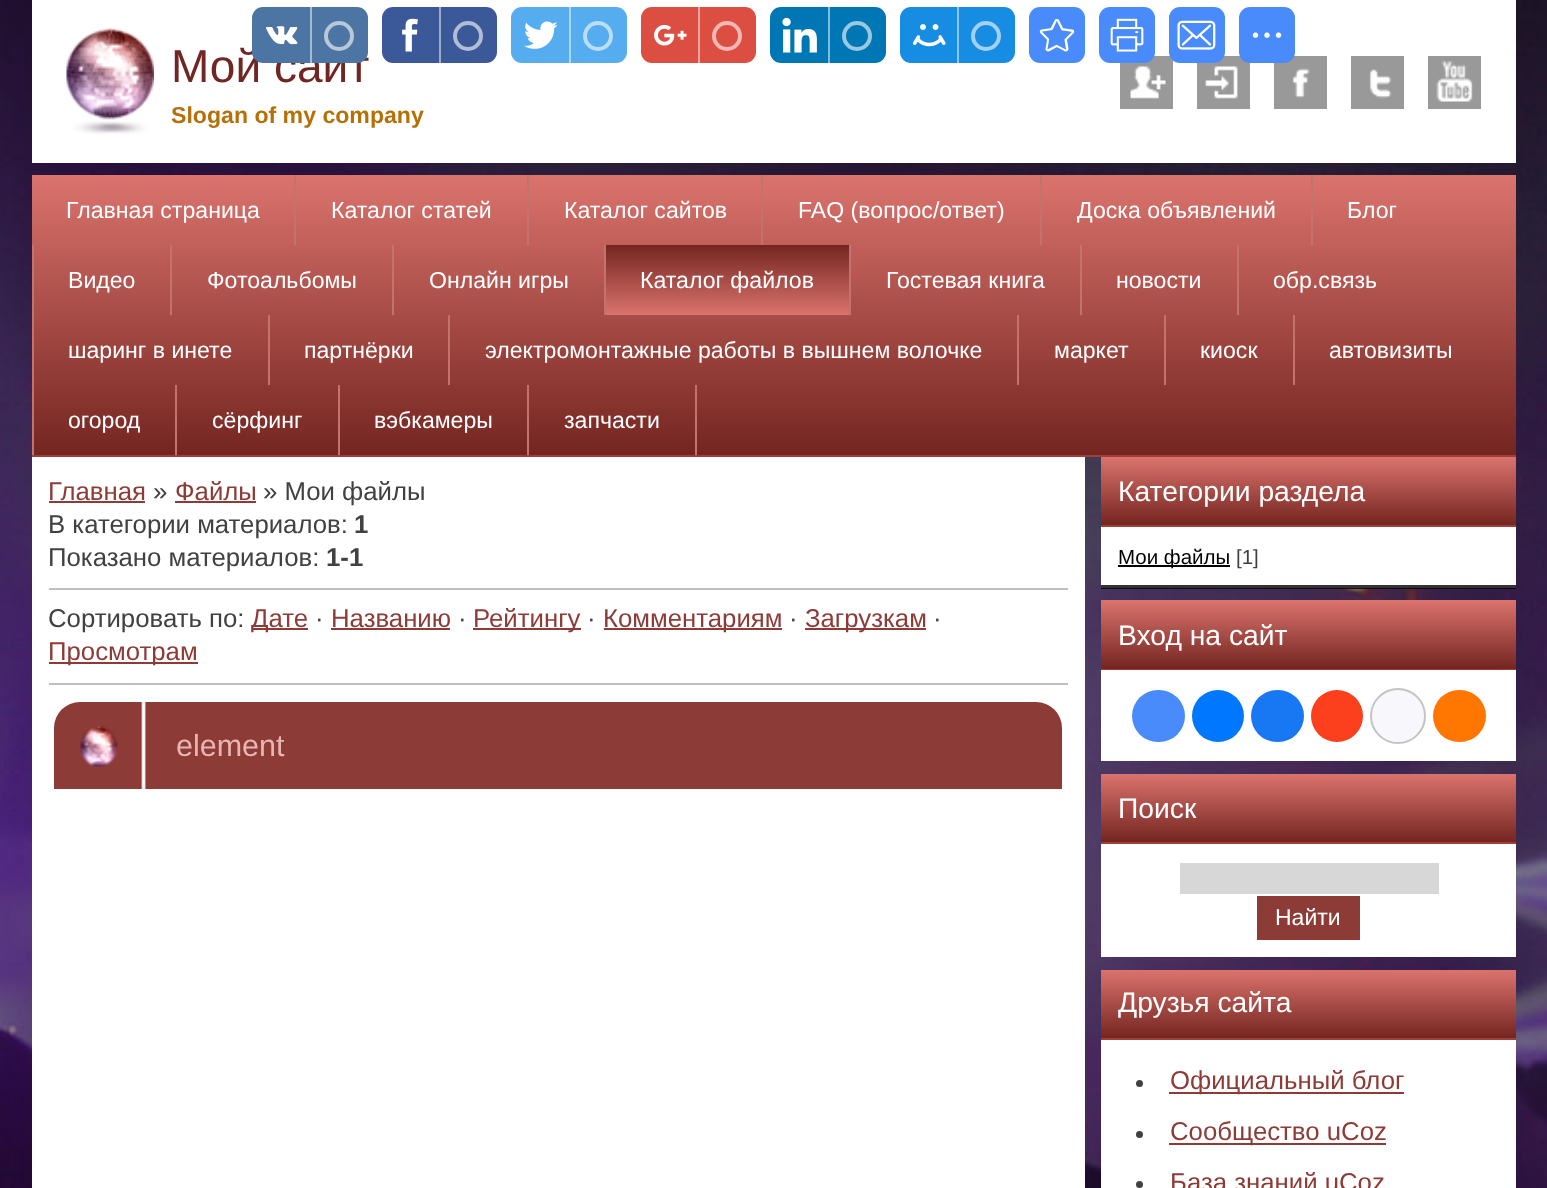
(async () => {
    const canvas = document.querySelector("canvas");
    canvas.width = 1547;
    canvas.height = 1188;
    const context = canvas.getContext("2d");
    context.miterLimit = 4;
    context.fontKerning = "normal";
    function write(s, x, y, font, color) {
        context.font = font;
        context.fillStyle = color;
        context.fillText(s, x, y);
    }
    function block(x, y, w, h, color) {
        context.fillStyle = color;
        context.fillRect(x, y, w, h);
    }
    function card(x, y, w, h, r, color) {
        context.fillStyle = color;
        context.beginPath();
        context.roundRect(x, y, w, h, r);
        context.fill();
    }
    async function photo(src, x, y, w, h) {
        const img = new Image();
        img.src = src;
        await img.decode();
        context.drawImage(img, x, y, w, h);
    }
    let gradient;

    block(0, 0, 1547, 1188, "rgb(255, 255, 255)");
    await photo("media/1.png", 0, 0, 1547, 1188);
    block(32, 0, 1484, 163, "rgb(255, 255, 255)");
    write("Мой сайт", 171, 82, "46px Liberation Sans", "rgb(112, 38, 34)");
    card(252, 7, 116, 56, 11, "rgb(77, 117, 163)");
    await photo("media/2.png", 266, 26, 32, 19);
    block(310, 7, 2, 56, "rgb(166, 186, 209)");
    context.beginPath();
    context.arc(339, 36, 13, 0, Math.PI * 2);
    context.strokeStyle = "rgb(184, 200, 218)";
    context.lineWidth = 4;
    context.stroke();
    card(382, 7, 115, 56, 11, "rgb(59, 89, 152)");
    await photo("media/3.png", 402, 18, 16, 34);
    block(439, 7, 2, 56, "rgb(157, 172, 204)");
    context.beginPath();
    context.arc(468, 36, 13, 0, Math.PI * 2);
    context.strokeStyle = "rgb(177, 189, 214)";
    context.stroke();
    card(511, 7, 116, 56, 11, "rgb(85, 172, 238)");
    await photo("media/4.png", 524, 21, 34, 28);
    block(569, 7, 2, 56, "rgb(170, 214, 247)");
    context.beginPath();
    context.arc(598, 36, 13, 0, Math.PI * 2);
    context.strokeStyle = "rgb(187, 222, 248)";
    context.stroke();
    card(641, 7, 115, 56, 11, "rgb(220, 78, 65)");
    await photo("media/5.png", 654, 24, 33, 22);
    block(698, 7, 2, 56, "rgb(238, 167, 160)");
    context.beginPath();
    context.arc(727, 36, 13, 0, Math.PI * 2);
    context.strokeStyle = "rgb(241, 184, 179)";
    context.stroke();
    card(770, 7, 116, 56, 11, "rgb(0, 119, 181)");
    await photo("media/6.png", 782, 17, 35, 36);
    block(828, 7, 2, 56, "rgb(128, 187, 218)");
    context.beginPath();
    context.arc(857, 36, 13, 0, Math.PI * 2);
    context.strokeStyle = "rgb(153, 201, 225)";
    context.stroke();
    card(900, 7, 115, 56, 11, "rgb(22, 141, 226)");
    await photo("media/7.png", 912, 24, 34, 23);
    block(957, 7, 2, 56, "rgb(139, 198, 241)");
    context.beginPath();
    context.arc(986, 36, 13, 0, Math.PI * 2);
    context.strokeStyle = "rgb(162, 209, 243)";
    context.stroke();
    card(1029, 7, 56, 56, 11, "rgb(73, 139, 250)");
    await photo("media/8.png", 1039, 18, 36, 34);
    block(1120, 56, 53, 53, "rgb(153, 153, 153)");
    card(1099, 7, 56, 56, 11, "rgb(73, 139, 250)");
    await photo("media/9.png", 1110, 18, 34, 34);
    block(1197, 56, 53, 53, "rgb(153, 153, 153)");
    card(1169, 7, 56, 56, 11, "rgb(73, 139, 250)");
    await photo("media/10.png", 1177, 20, 39, 30);
    block(1274, 56, 53, 53, "rgb(153, 153, 153)");
    card(1239, 7, 56, 56, 11, "rgb(73, 139, 250)");
    await photo("media/11.png", 1252, 32, 30, 6);
    await photo("media/12.png", 66, 28, 88, 106);
    write("Slogan of my company", 171, 123, "bold 23.1px Liberation Sans", "rgb(181, 112, 8)");
    await photo("media/13.png", 1130, 66, 36, 33);
    await photo("media/14.png", 1205, 66, 33, 33);
    await photo("media/15.png", 1292, 68, 18, 30);
    block(1351, 56, 53, 53, "rgb(153, 153, 153)");
    await photo("media/16.png", 1369, 69, 23, 30);
    block(1428, 56, 53, 53, "rgb(153, 153, 153)");
    await photo("media/17.png", 1436, 61, 37, 41);
    gradient = context.createLinearGradient(774, 175, 774, 455);
    gradient.addColorStop(0, "rgb(219, 115, 109)");
    gradient.addColorStop(1, "rgb(116, 37, 32)");
    context.fillStyle = gradient;
    context.fillRect(32, 175, 1484, 280);
    block(32, 455, 1484, 2, "rgb(160, 63, 57)");
    write("Главная страница", 66, 218, "23.1px Liberation Sans", "rgb(255, 255, 255)");
    block(294, 175, 2, 70, "rgb(196, 114, 110)");
    write("Каталог статей", 331, 218, "23.1px Liberation Sans", "rgb(255, 255, 255)");
    block(527, 175, 2, 70, "rgb(196, 114, 110)");
    write("Каталог сайтов", 564, 218, "23.1px Liberation Sans", "rgb(255, 255, 255)");
    block(761, 175, 2, 70, "rgb(196, 114, 110)");
    write("FAQ (вопрос/ответ)", 798, 218, "23.1px Liberation Sans", "rgb(255, 255, 255)");
    block(1040, 175, 2, 70, "rgb(196, 114, 110)");
    write("Доска объявлений", 1077, 218, "23.1px Liberation Sans", "rgb(255, 255, 255)");
    block(1311, 175, 2, 70, "rgb(196, 114, 110)");
    write("Блог", 1347, 218, "23.1px Liberation Sans", "rgb(255, 255, 255)");
    block(32, 245, 2, 210, "rgb(196, 114, 110)");
    write("Видео", 68, 288, "23.1px Liberation Sans", "rgb(255, 255, 255)");
    block(170, 245, 2, 70, "rgb(196, 114, 110)");
    write("Фотоальбомы", 207, 288, "23.1px Liberation Sans", "rgb(255, 255, 255)");
    block(392, 245, 2, 70, "rgb(196, 114, 110)");
    write("Онлайн игры", 429, 288, "23.1px Liberation Sans", "rgb(255, 255, 255)");
    block(604, 245, 2, 70, "rgb(196, 114, 110)");
    gradient = context.createLinearGradient(727, 315, 727, 245);
    gradient.addColorStop(0, "rgb(219, 115, 109)");
    gradient.addColorStop(1, "rgb(116, 37, 32)");
    context.fillStyle = gradient;
    context.fillRect(606, 245, 243, 70);
    write("Каталог файлов", 640, 288, "23.1px Liberation Sans", "rgb(255, 255, 255)");
    block(849, 245, 2, 70, "rgb(196, 114, 110)");
    write("Гостевая книга", 886, 288, "23.1px Liberation Sans", "rgb(255, 255, 255)");
    block(1080, 245, 2, 70, "rgb(196, 114, 110)");
    write("новости", 1116, 288, "23.1px Liberation Sans", "rgb(255, 255, 255)");
    block(1237, 245, 2, 70, "rgb(196, 114, 110)");
    write("обр.связь", 1273, 288, "23.1px Liberation Sans", "rgb(255, 255, 255)");
    write("шаринг в инете", 68, 358, "23.1px Liberation Sans", "rgb(255, 255, 255)");
    block(268, 315, 2, 70, "rgb(196, 114, 110)");
    write("партнёрки", 304, 358, "23.1px Liberation Sans", "rgb(255, 255, 255)");
    block(448, 315, 2, 70, "rgb(196, 114, 110)");
    write("электромонтажные работы в вышнем волочке", 485, 358, "23.1px Liberation Sans", "rgb(255, 255, 255)");
    block(1017, 315, 2, 70, "rgb(196, 114, 110)");
    write("маркет", 1054, 358, "23.1px Liberation Sans", "rgb(255, 255, 255)");
    block(1164, 315, 2, 70, "rgb(196, 114, 110)");
    write("киоск", 1200, 358, "23.1px Liberation Sans", "rgb(255, 255, 255)");
    block(1293, 315, 2, 70, "rgb(196, 114, 110)");
    write("автовизиты", 1329, 358, "23.1px Liberation Sans", "rgb(255, 255, 255)");
    write("огород", 68, 428, "23.1px Liberation Sans", "rgb(255, 255, 255)");
    block(175, 385, 2, 70, "rgb(196, 114, 110)");
    write("сёрфинг", 212, 428, "23.1px Liberation Sans", "rgb(255, 255, 255)");
    block(338, 385, 2, 70, "rgb(196, 114, 110)");
    write("вэбкамеры", 374, 428, "23.1px Liberation Sans", "rgb(255, 255, 255)");
    block(695, 385, 2, 70, "rgb(196, 114, 110)");
    block(527, 385, 2, 70, "rgb(196, 114, 110)");
    write("запчасти", 564, 428, "23.1px Liberation Sans", "rgb(255, 255, 255)");
    block(32, 457, 1053, 731, "rgb(255, 255, 255)");
    write("Главная", 48, 500, "25.75px Liberation Sans", "rgb(141, 59, 55)");
    block(49, 501, 96, 2, "rgb(141, 59, 55)");
    write("»", 153, 500, "25.75px Liberation Sans", "rgb(65, 65, 65)");
    write("Файлы", 175, 500, "25.75px Liberation Sans", "rgb(141, 59, 55)");
    block(175, 501, 81, 2, "rgb(141, 59, 55)");
    write("» Мои файлы", 263, 500, "25.75px Liberation Sans", "rgb(65, 65, 65)");
    write("В категории материалов:", 48, 533, "25.75px Liberation Sans", "rgb(65, 65, 65)");
    write("1", 354, 533, "bold 25.75px Liberation Sans", "rgb(65, 65, 65)");
    write("Показано материалов:", 48, 566, "25.75px Liberation Sans", "rgb(65, 65, 65)");
    write("1-1", 326, 566, "bold 25.75px Liberation Sans", "rgb(65, 65, 65)");
    block(49, 588, 1019, 2, "rgb(191, 191, 191)");
    write("Сортировать по:", 48, 627, "25.75px Liberation Sans", "rgb(65, 65, 65)");
    block(252, 628, 56, 2, "rgb(141, 59, 55)");
    write("Дате", 251, 627, "25.75px Liberation Sans", "rgb(141, 59, 55)");
    write("·", 315, 627, "25.75px Liberation Sans", "rgb(65, 65, 65)");
    write("Названию", 331, 627, "25.75px Liberation Sans", "rgb(141, 59, 55)");
    block(331, 628, 119, 2, "rgb(141, 59, 55)");
    write("·", 458, 627, "25.75px Liberation Sans", "rgb(65, 65, 65)");
    block(473, 628, 108, 2, "rgb(141, 59, 55)");
    write("Рейтингу", 473, 627, "25.75px Liberation Sans", "rgb(141, 59, 55)");
    write("·", 587, 627, "25.75px Liberation Sans", "rgb(65, 65, 65)");
    block(604, 628, 178, 2, "rgb(141, 59, 55)");
    write("Комментариям", 603, 627, "25.75px Liberation Sans", "rgb(141, 59, 55)");
    write("·", 789, 627, "25.75px Liberation Sans", "rgb(65, 65, 65)");
    block(805, 628, 121, 2, "rgb(141, 59, 55)");
    write("Загрузкам", 805, 627, "25.75px Liberation Sans", "rgb(141, 59, 55)");
    write("·", 933, 627, "25.75px Liberation Sans", "rgb(65, 65, 65)");
    block(49, 662, 149, 2, "rgb(141, 59, 55)");
    write("Просмотрам", 48, 660, "25.75px Liberation Sans", "rgb(141, 59, 55)");
    block(49, 683, 1019, 2, "rgb(191, 191, 191)");
    context.fillStyle = "rgb(141, 59, 55)";
    context.beginPath();
    context.roundRect(54, 702, 1008, 87, [26, 26, 0, 0]);
    context.fill();
    await photo("media/18.png", 80, 702, 66, 87);
    write("element", 176, 756, "30.5px Liberation Sans", "rgb(232, 181, 178)");
    gradient = context.createLinearGradient(1308, 457, 1308, 525);
    gradient.addColorStop(0, "rgb(219, 115, 109)");
    gradient.addColorStop(1, "rgb(116, 37, 32)");
    context.fillStyle = gradient;
    context.fillRect(1101, 457, 415, 68);
    block(1101, 525, 415, 2, "rgb(160, 63, 57)");
    write("Категории раздела", 1118, 501, "28.25px Liberation Sans", "rgb(255, 255, 255)");
    block(1101, 527, 415, 61, "rgb(255, 255, 255)");
    block(1101, 585, 415, 4, "rgba(0, 0, 0, 0.8)");
    block(1118, 565, 112, 2, "rgb(0, 0, 0)");
    write("Мои файлы", 1118, 564, "20.5px Liberation Sans", "rgb(0, 0, 0)");
    write("[1]", 1236, 564, "20.5px Liberation Sans", "rgb(65, 65, 65)");
    gradient = context.createLinearGradient(1308, 600, 1308, 669);
    gradient.addColorStop(0, "rgb(219, 115, 109)");
    gradient.addColorStop(1, "rgb(116, 37, 32)");
    context.fillStyle = gradient;
    context.fillRect(1101, 600, 415, 69);
    block(1101, 669, 415, 1, "rgb(160, 63, 57)");
    write("Вход на сайт", 1118, 645, "28.25px Liberation Sans", "rgb(255, 255, 255)");
    block(1101, 670, 415, 91, "rgb(255, 255, 255)");
    card(1132, 690, 53, 52, 26, "rgb(73, 139, 250)");
    context.fillStyle = "rgb(0, 119, 255)";
    context.beginPath();
    context.arc(1218, 716, 26, 0, Math.PI * 2);
    context.fill();
    card(1251, 690, 53, 52, 26, "rgb(24, 119, 242)");
    context.fillStyle = "rgb(252, 63, 29)";
    context.beginPath();
    context.arc(1337, 716, 26, 0, Math.PI * 2);
    context.fill();
    context.fillStyle = "rgb(248, 248, 252)";
    context.beginPath();
    context.arc(1398, 716, 27, 0, Math.PI * 2);
    context.fill();
    context.strokeStyle = "rgb(196, 196, 196)";
    context.lineWidth = 2;
    context.stroke();
    card(1433, 690, 53, 52, 26, "rgb(255, 119, 0)");
    gradient = context.createLinearGradient(1308, 774, 1308, 842);
    gradient.addColorStop(0, "rgb(219, 115, 109)");
    gradient.addColorStop(1, "rgb(116, 37, 32)");
    context.fillStyle = gradient;
    context.fillRect(1101, 774, 415, 68);
    block(1101, 842, 415, 2, "rgb(160, 63, 57)");
    write("Поиск", 1118, 818, "28.25px Liberation Sans", "rgb(255, 255, 255)");
    block(1101, 844, 415, 113, "rgb(255, 255, 255)");
    block(1180, 863, 259, 31, "rgb(215, 215, 215)");
    block(1257, 896, 103, 44, "rgb(141, 59, 55)");
    write("Найти", 1275, 925, "23px Liberation Sans", "rgb(255, 255, 255)");
    gradient = context.createLinearGradient(1308, 970, 1308, 1038);
    gradient.addColorStop(0, "rgb(219, 115, 109)");
    gradient.addColorStop(1, "rgb(116, 37, 32)");
    context.fillStyle = gradient;
    context.fillRect(1101, 970, 415, 68);
    block(1101, 1038, 415, 2, "rgb(160, 63, 57)");
    write("Друзья сайта", 1118, 1012, "28.25px Liberation Sans", "rgb(255, 255, 255)");
    block(1101, 1040, 415, 148, "rgb(255, 255, 255)");
    context.fillStyle = "rgb(65, 65, 65)";
    context.beginPath();
    context.arc(1139.5, 1083.5, 3.5, 0, Math.PI * 2);
    context.fill();
    block(1169, 1092, 235, 2, "rgb(141, 59, 55)");
    write("Официальный блог", 1170, 1089, "25.75px Liberation Sans", "rgb(141, 59, 55)");
    context.fillStyle = "rgb(65, 65, 65)";
    context.beginPath();
    context.arc(1139.5, 1134.5, 3.5, 0, Math.PI * 2);
    context.fill();
    block(1169, 1143, 217, 2, "rgb(141, 59, 55)");
    write("Сообщество uCoz", 1170, 1140, "25.75px Liberation Sans", "rgb(141, 59, 55)");
    context.fillStyle = "rgb(65, 65, 65)";
    context.beginPath();
    context.arc(1139.5, 1184.5, 3.5, 0, Math.PI * 2);
    context.fill();
    write("База знаний uCoz", 1170, 1191, "25.75px Liberation Sans", "rgb(141, 59, 55)");
})();
